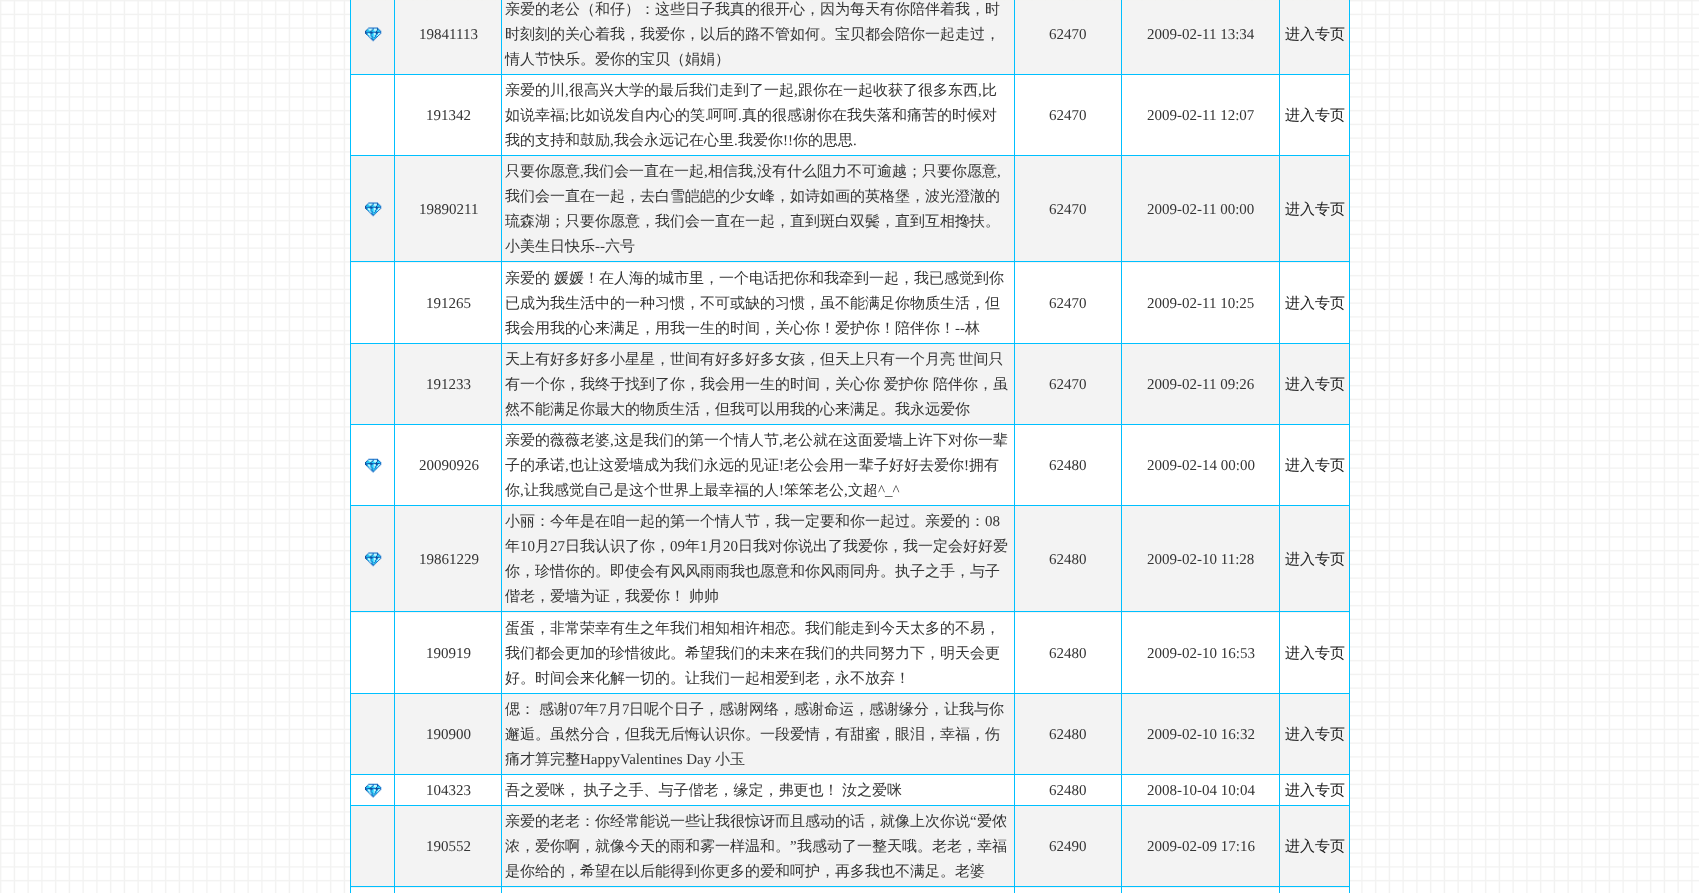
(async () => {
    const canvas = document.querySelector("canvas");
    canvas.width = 1699;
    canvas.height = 893;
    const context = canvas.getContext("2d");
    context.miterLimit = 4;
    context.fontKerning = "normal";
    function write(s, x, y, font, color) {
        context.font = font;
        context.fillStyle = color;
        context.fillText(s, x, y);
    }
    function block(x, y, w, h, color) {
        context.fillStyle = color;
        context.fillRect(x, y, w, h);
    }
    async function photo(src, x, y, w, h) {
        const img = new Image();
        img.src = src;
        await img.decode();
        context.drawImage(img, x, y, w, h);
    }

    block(0, 0, 1699, 893, "rgb(255, 255, 255)");
    await photo("media/1.png", 0, 0, 1699, 893);
    block(351, 75, 998, 818, "rgb(255, 255, 255)");
    block(1349, 0, 1, 893, "rgb(0, 192, 255)");
    block(350, 0, 1, 893, "rgb(0, 192, 255)");
    block(351, 1, 997, 73, "rgb(243, 243, 243)");
    await photo("media/2.png", 365, 27, 17, 15);
    block(1279, 74, 71, 1, "rgb(0, 192, 255)");
    block(1279, 155, 71, 1, "rgb(0, 192, 255)");
    block(351, 156, 998, 107, "rgb(243, 243, 243)");
    block(1279, 261, 71, 1, "rgb(0, 192, 255)");
    block(1279, 343, 71, 1, "rgb(0, 192, 255)");
    block(351, 344, 998, 80, "rgb(243, 243, 243)");
    block(1279, 424, 71, 1, "rgb(0, 192, 255)");
    block(1279, 505, 71, 1, "rgb(0, 192, 255)");
    block(351, 506, 998, 107, "rgb(243, 243, 243)");
    block(1279, 611, 71, 1, "rgb(0, 192, 255)");
    block(1279, 693, 71, 1, "rgb(0, 192, 255)");
    block(351, 694, 998, 80, "rgb(243, 243, 243)");
    block(1279, 774, 71, 1, "rgb(0, 192, 255)");
    block(1279, 805, 71, 1, "rgb(0, 192, 255)");
    block(351, 806, 998, 82, "rgb(243, 243, 243)");
    block(1279, 886, 71, 1, "rgb(0, 192, 255)");
    block(1279, 886, 1, 7, "rgb(0, 192, 255)");
    block(1121, 886, 159, 1, "rgb(0, 192, 255)");
    block(1279, 805, 1, 83, "rgb(0, 192, 255)");
    block(1121, 805, 159, 1, "rgb(0, 192, 255)");
    block(1279, 774, 1, 32, "rgb(0, 192, 255)");
    block(1121, 774, 159, 1, "rgb(0, 192, 255)");
    block(1279, 693, 1, 82, "rgb(0, 192, 255)");
    block(1121, 693, 159, 1, "rgb(0, 192, 255)");
    block(1279, 611, 1, 83, "rgb(0, 192, 255)");
    block(1121, 611, 159, 1, "rgb(0, 192, 255)");
    block(1279, 505, 1, 108, "rgb(0, 192, 255)");
    block(1121, 505, 159, 1, "rgb(0, 192, 255)");
    block(1279, 424, 1, 82, "rgb(0, 192, 255)");
    block(1121, 424, 159, 1, "rgb(0, 192, 255)");
    block(1279, 343, 1, 82, "rgb(0, 192, 255)");
    block(1121, 343, 159, 1, "rgb(0, 192, 255)");
    block(1279, 261, 1, 83, "rgb(0, 192, 255)");
    block(1121, 261, 159, 1, "rgb(0, 192, 255)");
    block(1279, 155, 1, 108, "rgb(0, 192, 255)");
    block(1121, 155, 159, 1, "rgb(0, 192, 255)");
    block(1279, 74, 1, 82, "rgb(0, 192, 255)");
    block(1121, 74, 159, 1, "rgb(0, 192, 255)");
    block(1121, 886, 1, 7, "rgb(0, 192, 255)");
    block(1014, 886, 109, 1, "rgb(0, 192, 255)");
    block(1121, 805, 1, 83, "rgb(0, 192, 255)");
    block(1014, 805, 109, 1, "rgb(0, 192, 255)");
    block(1121, 774, 1, 32, "rgb(0, 192, 255)");
    block(1014, 774, 109, 1, "rgb(0, 192, 255)");
    block(1121, 693, 1, 82, "rgb(0, 192, 255)");
    block(1014, 693, 109, 1, "rgb(0, 192, 255)");
    block(1121, 611, 1, 83, "rgb(0, 192, 255)");
    block(1014, 611, 109, 1, "rgb(0, 192, 255)");
    block(1121, 505, 1, 108, "rgb(0, 192, 255)");
    block(1014, 505, 109, 1, "rgb(0, 192, 255)");
    block(1121, 424, 1, 82, "rgb(0, 192, 255)");
    block(1014, 424, 109, 1, "rgb(0, 192, 255)");
    block(1121, 343, 1, 82, "rgb(0, 192, 255)");
    block(1014, 343, 109, 1, "rgb(0, 192, 255)");
    block(1121, 261, 1, 83, "rgb(0, 192, 255)");
    block(1014, 261, 109, 1, "rgb(0, 192, 255)");
    block(1121, 155, 1, 108, "rgb(0, 192, 255)");
    block(1014, 155, 109, 1, "rgb(0, 192, 255)");
    block(1121, 74, 1, 82, "rgb(0, 192, 255)");
    block(1014, 74, 109, 1, "rgb(0, 192, 255)");
    block(1014, 886, 1, 7, "rgb(0, 192, 255)");
    block(501, 886, 514, 1, "rgb(0, 192, 255)");
    block(1014, 805, 1, 83, "rgb(0, 192, 255)");
    block(501, 805, 514, 1, "rgb(0, 192, 255)");
    block(1014, 774, 1, 32, "rgb(0, 192, 255)");
    block(501, 774, 514, 1, "rgb(0, 192, 255)");
    block(1014, 693, 1, 82, "rgb(0, 192, 255)");
    block(501, 693, 514, 1, "rgb(0, 192, 255)");
    block(1014, 611, 1, 83, "rgb(0, 192, 255)");
    block(501, 611, 514, 1, "rgb(0, 192, 255)");
    block(1014, 505, 1, 108, "rgb(0, 192, 255)");
    block(501, 505, 514, 1, "rgb(0, 192, 255)");
    block(1014, 424, 1, 82, "rgb(0, 192, 255)");
    block(501, 424, 514, 1, "rgb(0, 192, 255)");
    block(1014, 343, 1, 82, "rgb(0, 192, 255)");
    block(501, 343, 514, 1, "rgb(0, 192, 255)");
    block(1014, 261, 1, 83, "rgb(0, 192, 255)");
    block(501, 261, 514, 1, "rgb(0, 192, 255)");
    block(1014, 155, 1, 108, "rgb(0, 192, 255)");
    block(501, 155, 514, 1, "rgb(0, 192, 255)");
    block(1014, 74, 1, 82, "rgb(0, 192, 255)");
    block(501, 74, 514, 1, "rgb(0, 192, 255)");
    block(501, 886, 1, 7, "rgb(0, 192, 255)");
    block(394, 886, 109, 1, "rgb(0, 192, 255)");
    block(501, 805, 1, 83, "rgb(0, 192, 255)");
    block(394, 805, 109, 1, "rgb(0, 192, 255)");
    block(501, 774, 1, 32, "rgb(0, 192, 255)");
    block(394, 774, 109, 1, "rgb(0, 192, 255)");
    block(501, 693, 1, 82, "rgb(0, 192, 255)");
    block(394, 693, 109, 1, "rgb(0, 192, 255)");
    block(501, 611, 1, 83, "rgb(0, 192, 255)");
    block(394, 611, 109, 1, "rgb(0, 192, 255)");
    block(501, 505, 1, 108, "rgb(0, 192, 255)");
    block(394, 505, 109, 1, "rgb(0, 192, 255)");
    block(501, 424, 1, 82, "rgb(0, 192, 255)");
    block(394, 424, 109, 1, "rgb(0, 192, 255)");
    block(501, 343, 1, 82, "rgb(0, 192, 255)");
    block(394, 343, 109, 1, "rgb(0, 192, 255)");
    block(501, 261, 1, 83, "rgb(0, 192, 255)");
    block(394, 261, 109, 1, "rgb(0, 192, 255)");
    block(501, 155, 1, 108, "rgb(0, 192, 255)");
    block(394, 155, 109, 1, "rgb(0, 192, 255)");
    block(501, 74, 1, 82, "rgb(0, 192, 255)");
    block(394, 74, 109, 1, "rgb(0, 192, 255)");
    block(394, 886, 1, 7, "rgb(0, 192, 255)");
    block(350, 886, 45, 1, "rgb(0, 192, 255)");
    block(394, 805, 1, 83, "rgb(0, 192, 255)");
    block(350, 805, 45, 1, "rgb(0, 192, 255)");
    block(394, 774, 1, 32, "rgb(0, 192, 255)");
    block(350, 774, 45, 1, "rgb(0, 192, 255)");
    block(394, 693, 1, 82, "rgb(0, 192, 255)");
    block(350, 693, 45, 1, "rgb(0, 192, 255)");
    block(394, 611, 1, 83, "rgb(0, 192, 255)");
    block(350, 611, 45, 1, "rgb(0, 192, 255)");
    block(394, 505, 1, 108, "rgb(0, 192, 255)");
    block(350, 505, 45, 1, "rgb(0, 192, 255)");
    block(394, 424, 1, 82, "rgb(0, 192, 255)");
    block(350, 424, 45, 1, "rgb(0, 192, 255)");
    block(394, 343, 1, 82, "rgb(0, 192, 255)");
    block(350, 343, 45, 1, "rgb(0, 192, 255)");
    block(394, 261, 1, 83, "rgb(0, 192, 255)");
    block(350, 261, 45, 1, "rgb(0, 192, 255)");
    block(394, 155, 1, 108, "rgb(0, 192, 255)");
    block(350, 155, 45, 1, "rgb(0, 192, 255)");
    block(394, 74, 1, 82, "rgb(0, 192, 255)");
    block(350, 74, 45, 1, "rgb(0, 192, 255)");
    block(394, 0, 1, 75, "rgb(0, 192, 255)");
    write("19841113", 419, 39, "15px Liberation Serif", "rgb(52, 52, 52)");
    block(501, 0, 1, 75, "rgb(0, 192, 255)");
    write("亲爱的老公（和仔）：这些日子我真的很开心，因为每天有你陪伴着我，时", 505, 14, "500 15px WenQuanYi Zen Hei", "rgb(52, 52, 52)");
    write("时刻刻的关心着我，我爱你，以后的路不管如何。宝贝都会陪你一起走过，", 505, 39, "500 15px WenQuanYi Zen Hei", "rgb(52, 52, 52)");
    write("情人节快乐。爱你的宝贝（娟娟）", 505, 64, "500 15px WenQuanYi Zen Hei", "rgb(52, 52, 52)");
    block(1014, 0, 1, 75, "rgb(0, 192, 255)");
    write("62470", 1049, 39, "15px Liberation Serif", "rgb(52, 52, 52)");
    block(1121, 0, 1, 75, "rgb(0, 192, 255)");
    write("2009-02-11 13:34", 1147, 39, "15px Liberation Serif", "rgb(52, 52, 52)");
    block(1279, 0, 1, 75, "rgb(0, 192, 255)");
    write("进入专页", 1285, 39, "500 15px WenQuanYi Zen Hei", "rgb(32, 32, 32)");
    write("191342", 426, 120, "15px Liberation Serif", "rgb(52, 52, 52)");
    write("亲爱的川", 505, 95, "500 15px WenQuanYi Zen Hei", "rgb(52, 52, 52)");
    write(",", 565, 95, "15px Liberation Serif", "rgb(52, 52, 52)");
    write("很高兴大学的最后我们走到了一起", 569, 95, "500 15px WenQuanYi Zen Hei", "rgb(52, 52, 52)");
    write(",", 794, 95, "15px Liberation Serif", "rgb(52, 52, 52)");
    write("跟你在一起收获了很多东西", 798, 95, "500 15px WenQuanYi Zen Hei", "rgb(52, 52, 52)");
    write(",", 978, 95, "15px Liberation Serif", "rgb(52, 52, 52)");
    write("比", 982, 95, "500 15px WenQuanYi Zen Hei", "rgb(52, 52, 52)");
    write("如说幸福", 505, 120, "500 15px WenQuanYi Zen Hei", "rgb(52, 52, 52)");
    write(";", 565, 120, "15px Liberation Serif", "rgb(52, 52, 52)");
    write("比如说发自内心的笑", 570, 120, "500 15px WenQuanYi Zen Hei", "rgb(52, 52, 52)");
    write(".", 705, 120, "15px Liberation Serif", "rgb(52, 52, 52)");
    write("呵呵", 708, 120, "500 15px WenQuanYi Zen Hei", "rgb(52, 52, 52)");
    write(".", 738, 120, "15px Liberation Serif", "rgb(52, 52, 52)");
    write("真的很感谢你在我失落和痛苦的时候对", 742, 120, "500 15px WenQuanYi Zen Hei", "rgb(52, 52, 52)");
    write("我的支持和鼓励", 505, 145, "500 15px WenQuanYi Zen Hei", "rgb(52, 52, 52)");
    write(",", 610, 145, "15px Liberation Serif", "rgb(52, 52, 52)");
    write("我会永远记在心里", 614, 145, "500 15px WenQuanYi Zen Hei", "rgb(52, 52, 52)");
    write(".", 734, 145, "15px Liberation Serif", "rgb(52, 52, 52)");
    write("我爱你", 738, 145, "500 15px WenQuanYi Zen Hei", "rgb(52, 52, 52)");
    write("!!", 783, 145, "15px Liberation Serif", "rgb(52, 52, 52)");
    write("你的思思", 793, 145, "500 15px WenQuanYi Zen Hei", "rgb(52, 52, 52)");
    write(".", 853, 145, "15px Liberation Serif", "rgb(52, 52, 52)");
    write("62470", 1049, 120, "15px Liberation Serif", "rgb(52, 52, 52)");
    write("2009-02-11 12:07", 1147, 120, "15px Liberation Serif", "rgb(52, 52, 52)");
    write("进入专页", 1285, 120, "500 15px WenQuanYi Zen Hei", "rgb(32, 32, 32)");
    await photo("media/2.png", 365, 202, 17, 15);
    write("19890211", 419, 214, "15px Liberation Serif", "rgb(52, 52, 52)");
    write("只要你愿意", 505, 176, "500 15px WenQuanYi Zen Hei", "rgb(52, 52, 52)");
    write(",", 580, 176, "15px Liberation Serif", "rgb(52, 52, 52)");
    write("我们会一直在一起", 584, 176, "500 15px WenQuanYi Zen Hei", "rgb(52, 52, 52)");
    write(",", 704, 176, "15px Liberation Serif", "rgb(52, 52, 52)");
    write("相信我", 708, 176, "500 15px WenQuanYi Zen Hei", "rgb(52, 52, 52)");
    write(",", 753, 176, "15px Liberation Serif", "rgb(52, 52, 52)");
    write("没有什么阻力不可逾越；只要你愿意", 757, 176, "500 15px WenQuanYi Zen Hei", "rgb(52, 52, 52)");
    write(",", 997, 176, "15px Liberation Serif", "rgb(52, 52, 52)");
    write("我们会一直在一起，去白雪皑皑的少女峰，如诗如画的英格堡，波光澄澈的", 505, 201, "500 15px WenQuanYi Zen Hei", "rgb(52, 52, 52)");
    write("琉森湖；只要你愿意，我们会一直在一起，直到斑白双鬓，直到互相搀扶。", 505, 226, "500 15px WenQuanYi Zen Hei", "rgb(52, 52, 52)");
    write("小美生日快乐", 505, 251, "500 15px WenQuanYi Zen Hei", "rgb(52, 52, 52)");
    write("--", 595, 251, "15px Liberation Serif", "rgb(52, 52, 52)");
    write("六号", 605, 251, "500 15px WenQuanYi Zen Hei", "rgb(52, 52, 52)");
    write("62470", 1049, 214, "15px Liberation Serif", "rgb(52, 52, 52)");
    write("2009-02-11 00:00", 1147, 214, "15px Liberation Serif", "rgb(52, 52, 52)");
    write("进入专页", 1285, 214, "500 15px WenQuanYi Zen Hei", "rgb(32, 32, 32)");
    write("191265", 426, 308, "15px Liberation Serif", "rgb(52, 52, 52)");
    write("亲爱的", 505, 283, "500 15px WenQuanYi Zen Hei", "rgb(52, 52, 52)");
    write("媛媛！在人海的城市里，一个电话把你和我牵到一起，我已感觉到你", 554, 283, "500 15px WenQuanYi Zen Hei", "rgb(52, 52, 52)");
    write("已成为我生活中的一种习惯，不可或缺的习惯，虽不能满足你物质生活，但", 505, 308, "500 15px WenQuanYi Zen Hei", "rgb(52, 52, 52)");
    write("我会用我的心来满足，用我一生的时间，关心你！爱护你！陪伴你！", 505, 333, "500 15px WenQuanYi Zen Hei", "rgb(52, 52, 52)");
    write("--", 955, 333, "15px Liberation Serif", "rgb(52, 52, 52)");
    write("林", 965, 333, "500 15px WenQuanYi Zen Hei", "rgb(52, 52, 52)");
    write("62470", 1049, 308, "15px Liberation Serif", "rgb(52, 52, 52)");
    write("2009-02-11 10:25", 1147, 308, "15px Liberation Serif", "rgb(52, 52, 52)");
    write("进入专页", 1285, 308, "500 15px WenQuanYi Zen Hei", "rgb(32, 32, 32)");
    write("191233", 426, 389, "15px Liberation Serif", "rgb(52, 52, 52)");
    context.wordSpacing = "-1px";
    write("天上有好多好多小星星，世间有好多好多女孩，但天上只有一个月亮 世间只", 505, 364, "500 15px WenQuanYi Zen Hei", "rgb(52, 52, 52)");
    write("有一个你，我终于找到了你，我会用一生的时间，关心你 爱护你", 505, 389, "500 15px WenQuanYi Zen Hei", "rgb(52, 52, 52)");
    context.wordSpacing = "0px";
    write("陪伴你，虽", 933, 389, "500 15px WenQuanYi Zen Hei", "rgb(52, 52, 52)");
    write("然不能满足你最大的物质生活，但我可以用我的心来满足。我永远爱你", 505, 414, "500 15px WenQuanYi Zen Hei", "rgb(52, 52, 52)");
    write("62470", 1049, 389, "15px Liberation Serif", "rgb(52, 52, 52)");
    write("2009-02-11 09:26", 1147, 389, "15px Liberation Serif", "rgb(52, 52, 52)");
    write("进入专页", 1285, 389, "500 15px WenQuanYi Zen Hei", "rgb(32, 32, 32)");
    await photo("media/3.png", 365, 458, 17, 15);
    write("20090926", 419, 470, "15px Liberation Serif", "rgb(52, 52, 52)");
    write("亲爱的薇薇老婆", 505, 445, "500 15px WenQuanYi Zen Hei", "rgb(52, 52, 52)");
    write(",", 610, 445, "15px Liberation Serif", "rgb(52, 52, 52)");
    write("这是我们的第一个情人节", 614, 445, "500 15px WenQuanYi Zen Hei", "rgb(52, 52, 52)");
    write(",", 779, 445, "15px Liberation Serif", "rgb(52, 52, 52)");
    write("老公就在这面爱墙上许下对你一辈", 783, 445, "500 15px WenQuanYi Zen Hei", "rgb(52, 52, 52)");
    write("子的承诺", 505, 470, "500 15px WenQuanYi Zen Hei", "rgb(52, 52, 52)");
    write(",", 565, 470, "15px Liberation Serif", "rgb(52, 52, 52)");
    write("也让这爱墙成为我们永远的见证", 569, 470, "500 15px WenQuanYi Zen Hei", "rgb(52, 52, 52)");
    write("!", 779, 470, "15px Liberation Serif", "rgb(52, 52, 52)");
    write("老公会用一辈子好好去爱你", 784, 470, "500 15px WenQuanYi Zen Hei", "rgb(52, 52, 52)");
    write("!", 964, 470, "15px Liberation Serif", "rgb(52, 52, 52)");
    write("拥有", 969, 470, "500 15px WenQuanYi Zen Hei", "rgb(52, 52, 52)");
    write("你", 505, 495, "500 15px WenQuanYi Zen Hei", "rgb(52, 52, 52)");
    write(",", 520, 495, "15px Liberation Serif", "rgb(52, 52, 52)");
    write("让我感觉自己是这个世界上最幸福的人", 524, 495, "500 15px WenQuanYi Zen Hei", "rgb(52, 52, 52)");
    write("!", 779, 495, "15px Liberation Serif", "rgb(52, 52, 52)");
    write("笨笨老公", 784, 495, "500 15px WenQuanYi Zen Hei", "rgb(52, 52, 52)");
    write(",", 844, 495, "15px Liberation Serif", "rgb(52, 52, 52)");
    write("文超", 848, 495, "500 15px WenQuanYi Zen Hei", "rgb(52, 52, 52)");
    write("^_^", 878, 495, "15px Liberation Serif", "rgb(52, 52, 52)");
    write("62480", 1049, 470, "15px Liberation Serif", "rgb(52, 52, 52)");
    write("2009-02-14 00:00", 1147, 470, "15px Liberation Serif", "rgb(52, 52, 52)");
    write("进入专页", 1285, 470, "500 15px WenQuanYi Zen Hei", "rgb(32, 32, 32)");
    await photo("media/2.png", 365, 552, 17, 15);
    write("19861229", 419, 564, "15px Liberation Serif", "rgb(52, 52, 52)");
    write("小丽：今年是在咱一起的第一个情人节，我一定要和你一起过。亲爱的：", 505, 526, "500 15px WenQuanYi Zen Hei", "rgb(52, 52, 52)");
    write("08", 985, 526, "15px Liberation Serif", "rgb(52, 52, 52)");
    write("年", 505, 551, "500 15px WenQuanYi Zen Hei", "rgb(52, 52, 52)");
    write("10", 520, 551, "15px Liberation Serif", "rgb(52, 52, 52)");
    write("月", 535, 551, "500 15px WenQuanYi Zen Hei", "rgb(52, 52, 52)");
    write("27", 550, 551, "15px Liberation Serif", "rgb(52, 52, 52)");
    write("日我认识了你，", 565, 551, "500 15px WenQuanYi Zen Hei", "rgb(52, 52, 52)");
    write("09", 670, 551, "15px Liberation Serif", "rgb(52, 52, 52)");
    write("年", 685, 551, "500 15px WenQuanYi Zen Hei", "rgb(52, 52, 52)");
    write("1", 700, 551, "15px Liberation Serif", "rgb(52, 52, 52)");
    write("月", 708, 551, "500 15px WenQuanYi Zen Hei", "rgb(52, 52, 52)");
    write("20", 723, 551, "15px Liberation Serif", "rgb(52, 52, 52)");
    write("日我对你说出了我爱你，我一定会好好爱", 738, 551, "500 15px WenQuanYi Zen Hei", "rgb(52, 52, 52)");
    write("你，珍惜你的。即使会有风风雨雨我也愿意和你风雨同舟。执子之手，与子", 505, 576, "500 15px WenQuanYi Zen Hei", "rgb(52, 52, 52)");
    write("偕老，爱墙为证，我爱你！", 505, 601, "500 15px WenQuanYi Zen Hei", "rgb(52, 52, 52)");
    write("帅帅", 689, 601, "500 15px WenQuanYi Zen Hei", "rgb(52, 52, 52)");
    write("62480", 1049, 564, "15px Liberation Serif", "rgb(52, 52, 52)");
    write("2009-02-10 11:28", 1147, 564, "15px Liberation Serif", "rgb(52, 52, 52)");
    write("进入专页", 1285, 564, "500 15px WenQuanYi Zen Hei", "rgb(32, 32, 32)");
    write("190919", 426, 658, "15px Liberation Serif", "rgb(52, 52, 52)");
    write("蛋蛋，非常荣幸有生之年我们相知相许相恋。我们能走到今天太多的不易，", 505, 633, "500 15px WenQuanYi Zen Hei", "rgb(52, 52, 52)");
    write("我们都会更加的珍惜彼此。希望我们的未来在我们的共同努力下，明天会更", 505, 658, "500 15px WenQuanYi Zen Hei", "rgb(52, 52, 52)");
    write("好。时间会来化解一切的。让我们一起相爱到老，永不放弃！", 505, 683, "500 15px WenQuanYi Zen Hei", "rgb(52, 52, 52)");
    write("62480", 1049, 658, "15px Liberation Serif", "rgb(52, 52, 52)");
    write("2009-02-10 16:53", 1147, 658, "15px Liberation Serif", "rgb(52, 52, 52)");
    write("进入专页", 1285, 658, "500 15px WenQuanYi Zen Hei", "rgb(32, 32, 32)");
    write("190900", 426, 739, "15px Liberation Serif", "rgb(52, 52, 52)");
    write("偲：", 505, 714, "500 15px WenQuanYi Zen Hei", "rgb(52, 52, 52)");
    write("感谢", 539, 714, "500 15px WenQuanYi Zen Hei", "rgb(52, 52, 52)");
    write("07", 569, 714, "15px Liberation Serif", "rgb(52, 52, 52)");
    write("年", 584, 714, "500 15px WenQuanYi Zen Hei", "rgb(52, 52, 52)");
    write("7", 599, 714, "15px Liberation Serif", "rgb(52, 52, 52)");
    write("月", 607, 714, "500 15px WenQuanYi Zen Hei", "rgb(52, 52, 52)");
    write("7", 622, 714, "15px Liberation Serif", "rgb(52, 52, 52)");
    write("日呢个日子，感谢网络，感谢命运，感谢缘分，让我与你", 629, 714, "500 15px WenQuanYi Zen Hei", "rgb(52, 52, 52)");
    write("邂逅。虽然分合，但我无后悔认识你。一段爱情，有甜蜜，眼泪，幸福，伤", 505, 739, "500 15px WenQuanYi Zen Hei", "rgb(52, 52, 52)");
    write("痛才算完整", 505, 764, "500 15px WenQuanYi Zen Hei", "rgb(52, 52, 52)");
    write("HappyValentines Day", 580, 764, "15px Liberation Serif", "rgb(52, 52, 52)");
    write("小玉", 715, 764, "500 15px WenQuanYi Zen Hei", "rgb(52, 52, 52)");
    write("62480", 1049, 739, "15px Liberation Serif", "rgb(52, 52, 52)");
    write("2009-02-10 16:32", 1147, 739, "15px Liberation Serif", "rgb(52, 52, 52)");
    write("进入专页", 1285, 739, "500 15px WenQuanYi Zen Hei", "rgb(32, 32, 32)");
    await photo("media/3.png", 365, 783, 17, 15);
    write("104323", 426, 795, "15px Liberation Serif", "rgb(52, 52, 52)");
    context.wordSpacing = "-1px";
    write("吾之爱咪， 执子之手、与子偕老，缘定，弗更也！ 汝之爱咪", 505, 795, "500 15px WenQuanYi Zen Hei", "rgb(52, 52, 52)");
    context.wordSpacing = "0px";
    write("62480", 1049, 795, "15px Liberation Serif", "rgb(52, 52, 52)");
    write("2008-10-04 10:04", 1147, 795, "15px Liberation Serif", "rgb(52, 52, 52)");
    write("进入专页", 1285, 795, "500 15px WenQuanYi Zen Hei", "rgb(32, 32, 32)");
    write("190552", 426, 851, "15px Liberation Serif", "rgb(52, 52, 52)");
    write("亲爱的老老：你经常能说一些让我很惊讶而且感动的话，就像上次你说", 505, 826, "500 15px WenQuanYi Zen Hei", "rgb(52, 52, 52)");
    write("“", 970, 826, "15px Liberation Serif", "rgb(52, 52, 52)");
    write("爱侬", 977, 826, "500 15px WenQuanYi Zen Hei", "rgb(52, 52, 52)");
    write("浓，爱你啊，就像今天的雨和雾一样温和。", 505, 851, "500 15px WenQuanYi Zen Hei", "rgb(52, 52, 52)");
    write("”", 790, 851, "15px Liberation Serif", "rgb(52, 52, 52)");
    write("我感动了一整天哦。老老，幸福", 797, 851, "500 15px WenQuanYi Zen Hei", "rgb(52, 52, 52)");
    write("是你给的，希望在以后能得到你更多的爱和呵护，再多我也不满足。老婆", 505, 876, "500 15px WenQuanYi Zen Hei", "rgb(52, 52, 52)");
    write("62490", 1049, 851, "15px Liberation Serif", "rgb(52, 52, 52)");
    write("2009-02-09 17:16", 1147, 851, "15px Liberation Serif", "rgb(52, 52, 52)");
    write("进入专页", 1285, 851, "500 15px WenQuanYi Zen Hei", "rgb(32, 32, 32)");
})();
